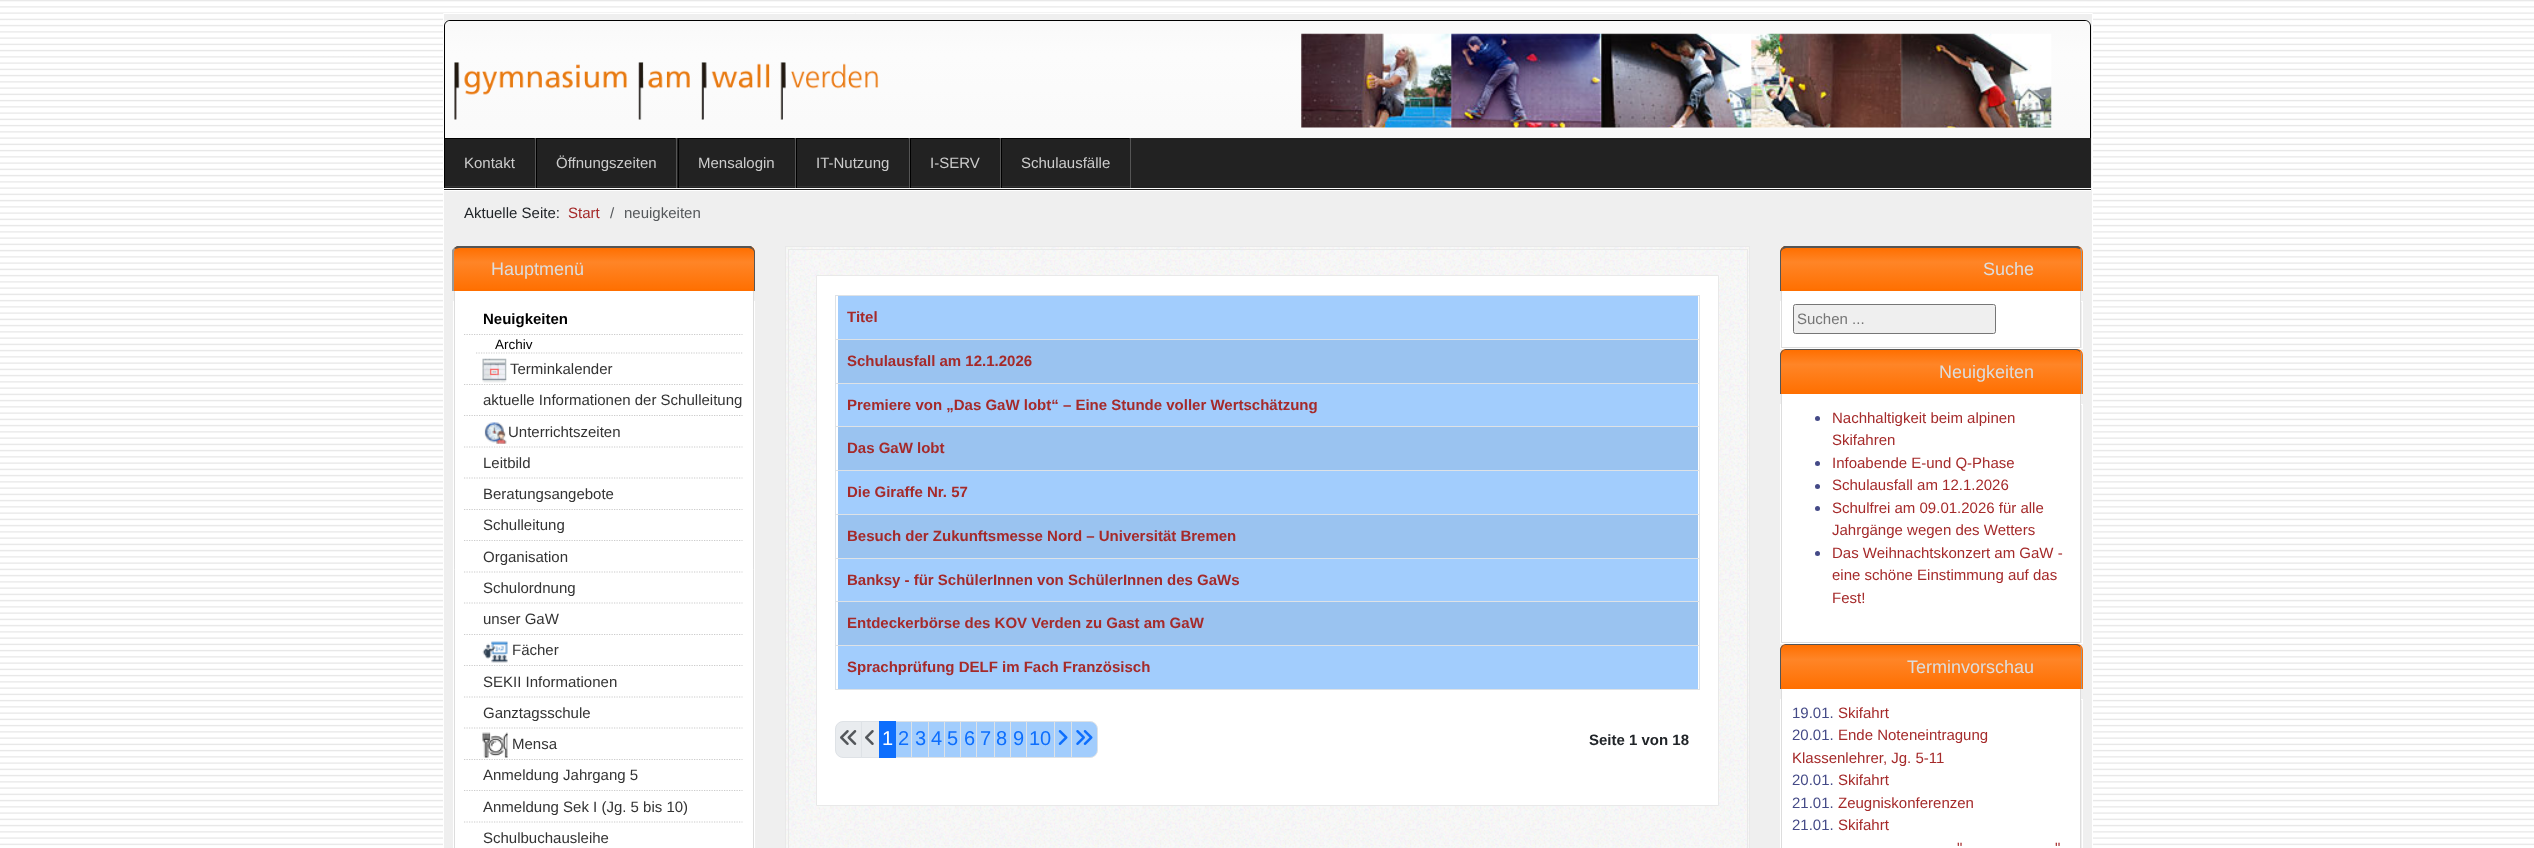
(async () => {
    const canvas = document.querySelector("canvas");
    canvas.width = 2534;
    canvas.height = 848;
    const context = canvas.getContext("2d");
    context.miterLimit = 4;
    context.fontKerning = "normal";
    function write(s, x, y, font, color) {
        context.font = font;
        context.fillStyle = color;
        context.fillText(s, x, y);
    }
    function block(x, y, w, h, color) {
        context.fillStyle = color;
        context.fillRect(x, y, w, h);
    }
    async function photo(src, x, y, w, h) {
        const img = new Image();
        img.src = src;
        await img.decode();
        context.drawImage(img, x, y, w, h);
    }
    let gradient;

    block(0, 0, 2534, 848, "rgb(255, 255, 255)");
    await photo("media/1.png", 0, 0, 2534, 848);
    context.fillStyle = "rgb(239, 239, 239)";
    context.beginPath();
    context.rect(443.5, 13.5, 1649, 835);
    context.fill();
    context.strokeStyle = "rgb(255, 255, 255)";
    context.stroke();
    context.save();
    context.beginPath();
    context.roundRect(444, 20, 1647, 136, [6, 6, 0, 0]);
    context.clip();
    gradient = context.createLinearGradient(1268, 21, 1268, 156);
    gradient.addColorStop(0, "rgb(249, 249, 249)");
    gradient.addColorStop(0.25, "rgb(252, 252, 252)");
    gradient.addColorStop(1, "rgb(249, 249, 249)");
    context.fillStyle = gradient;
    context.fillRect(445, 21, 1645, 117);
    context.restore();
    context.fillStyle = "rgb(0, 0, 0)";
    context.beginPath();
    context.moveTo(450, 20);
    context.lineTo(2085, 20);
    context.bezierCurveTo(2088, 20, 2091, 23, 2091, 26);
    context.lineTo(2091, 156);
    context.lineTo(444, 156);
    context.lineTo(444, 26);
    context.bezierCurveTo(444, 23, 447, 20, 450, 20);
    context.closePath();
    context.moveTo(450, 21);
    context.lineTo(2085, 21);
    context.bezierCurveTo(2088, 21, 2090, 23, 2090, 26);
    context.lineTo(2090, 156);
    context.lineTo(445, 156);
    context.lineTo(445, 26);
    context.bezierCurveTo(445, 23, 447, 21, 450, 21);
    context.closePath();
    context.fill("evenodd");
    await photo("media/2.png", 454, 62, 425, 58);
    await photo("media/3.png", 1301, 33, 751, 95);
    block(444, 138, 1647, 52, "rgb(34, 34, 34)");
    block(444, 188, 1647, 1, "rgb(255, 255, 255)");
    block(444, 190, 1647, 1, "rgb(255, 255, 255)");
    block(535, 138, 1, 50, "rgb(85, 85, 85)");
    block(444, 138, 91, 1, "rgb(0, 0, 0)");
    block(534, 138, 1, 1, "rgb(34, 34, 34)");
    block(444, 186, 91, 1, "rgb(51, 51, 51)");
    block(444, 138, 1, 50, "rgb(0, 0, 0)");
    write("Kontakt", 464, 168, "15px Liberation Sans", "rgb(204, 204, 204)");
    block(676, 138, 1, 50, "rgb(85, 85, 85)");
    block(536, 138, 140, 1, "rgb(0, 0, 0)");
    block(675, 138, 1, 1, "rgb(34, 34, 34)");
    block(536, 186, 140, 1, "rgb(51, 51, 51)");
    block(536, 138, 1, 50, "rgb(0, 0, 0)");
    write("Öffnungszeiten", 556, 168, "15px Liberation Sans", "rgb(204, 204, 204)");
    block(795, 138, 1, 50, "rgb(85, 85, 85)");
    block(678, 138, 117, 1, "rgb(0, 0, 0)");
    block(794, 138, 1, 1, "rgb(34, 34, 34)");
    block(678, 186, 117, 1, "rgb(51, 51, 51)");
    block(678, 138, 1, 50, "rgb(0, 0, 0)");
    write("Mensalogin", 698, 168, "15px Liberation Sans", "rgb(204, 204, 204)");
    block(909, 138, 1, 50, "rgb(85, 85, 85)");
    block(796, 138, 113, 1, "rgb(0, 0, 0)");
    block(908, 138, 1, 1, "rgb(34, 34, 34)");
    block(796, 186, 113, 1, "rgb(51, 51, 51)");
    block(796, 138, 1, 50, "rgb(0, 0, 0)");
    write("IT-Nutzung", 816, 168, "15px Liberation Sans", "rgb(204, 204, 204)");
    block(1000, 138, 1, 50, "rgb(85, 85, 85)");
    block(910, 138, 90, 1, "rgb(0, 0, 0)");
    block(999, 138, 1, 1, "rgb(34, 34, 34)");
    block(910, 186, 90, 1, "rgb(51, 51, 51)");
    block(910, 138, 1, 50, "rgb(0, 0, 0)");
    write("I-SERV", 930, 168, "15px Liberation Sans", "rgb(204, 204, 204)");
    block(1130, 138, 1, 50, "rgb(85, 85, 85)");
    block(1001, 138, 129, 1, "rgb(0, 0, 0)");
    block(1129, 138, 1, 1, "rgb(34, 34, 34)");
    block(1001, 186, 129, 1, "rgb(51, 51, 51)");
    block(1001, 138, 1, 50, "rgb(0, 0, 0)");
    write("Schulausfälle", 1021, 168, "15px Liberation Sans", "rgb(204, 204, 204)");
    write("Aktuelle Seite:", 464, 218, "15px Liberation Sans", "rgb(33, 37, 41)");
    write("Start", 568, 218, "15px Liberation Sans", "rgb(165, 42, 42)");
    write("/", 610, 218, "15px Liberation Sans", "rgb(85, 88, 91)");
    write("neuigkeiten", 624, 218, "15px Liberation Sans", "rgb(85, 88, 91)");
    context.strokeRect(453.5, 301.5, 301, 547);
    context.fillStyle = "rgb(255, 255, 255)";
    context.beginPath();
    context.rect(454.5, 290.5, 299, 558);
    context.fill();
    context.strokeStyle = "rgb(221, 221, 221)";
    context.stroke();
    context.fillStyle = "rgb(255, 111, 0)";
    context.beginPath();
    context.roundRect(453, 246, 302, 45, [6, 6, 0, 0]);
    context.fill();
    gradient = context.createLinearGradient(604, 248, 604, 291);
    gradient.addColorStop(0, "rgb(255, 111, 0)");
    gradient.addColorStop(0.33, "rgb(255, 133, 39)");
    gradient.addColorStop(1, "rgb(255, 111, 0)");
    context.fillStyle = gradient;
    context.fillRect(454, 248, 300, 41);
    context.fillStyle = "rgb(85, 85, 85)";
    context.beginPath();
    context.moveTo(459, 248);
    context.lineTo(455, 249);
    context.lineTo(454, 248);
    context.lineTo(457, 246);
    context.lineTo(751, 246);
    context.lineTo(753, 248);
    context.lineTo(752, 249);
    context.lineTo(749, 248);
    context.closePath();
    context.fill();
    context.beginPath();
    context.moveTo(755, 291);
    context.lineTo(755, 252);
    context.bezierCurveTo(755, 251, 754, 249, 753, 248);
    context.lineTo(752, 249);
    context.bezierCurveTo(753, 250, 754, 251, 754, 252);
    context.lineTo(754, 291);
    context.closePath();
    context.fill();
    context.fillStyle = "rgb(153, 153, 153)";
    context.beginPath();
    context.moveTo(452, 250);
    context.lineTo(454, 248);
    context.lineTo(455, 249);
    context.bezierCurveTo(455, 250, 454, 251, 454, 252);
    context.lineTo(454, 291);
    context.lineTo(452, 291);
    context.closePath();
    context.fill();
    write("Hauptmenü", 491, 275, "18px Liberation Sans", "rgb(221, 221, 221)");
    context.beginPath();
    context.moveTo(464, 334.5);
    context.lineTo(742.5, 334.5);
    context.strokeStyle = "rgb(204, 204, 204)";
    context.lineWidth = 1.2;
    context.setLineDash([1.25, 1.25]);
    context.stroke();
    write("Neuigkeiten", 483, 324, "bold 15px Liberation Sans", "rgb(0, 0, 0)");
    context.beginPath();
    context.moveTo(476, 353);
    context.lineTo(742.5, 353);
    context.stroke();
    write("Archiv", 495, 349, "13.5px Liberation Sans", "rgb(0, 0, 0)");
    context.beginPath();
    context.moveTo(464, 384.5);
    context.lineTo(742.5, 384.5);
    context.stroke();
    await photo("media/4.png", 482, 358, 25, 25);
    write("Terminkalender", 510, 374, "15px Liberation Sans", "rgb(51, 51, 51)");
    context.beginPath();
    context.moveTo(464, 415.5);
    context.lineTo(742.5, 415.5);
    context.stroke();
    write("aktuelle Informationen der Schulleitung", 483, 405, "15px Liberation Sans", "rgb(51, 51, 51)");
    context.beginPath();
    context.moveTo(464, 447);
    context.lineTo(742.5, 447);
    context.stroke();
    await photo("media/5.png", 484, 422, 23, 22);
    write("Unterrichtszeiten", 508, 437, "15px Liberation Sans", "rgb(51, 51, 51)");
    context.beginPath();
    context.moveTo(464, 478);
    context.lineTo(742.5, 478);
    context.stroke();
    write("Leitbild", 483, 468, "15px Liberation Sans", "rgb(51, 51, 51)");
    context.beginPath();
    context.moveTo(464, 509.5);
    context.lineTo(742.5, 509.5);
    context.stroke();
    write("Beratungsangebote", 483, 499, "15px Liberation Sans", "rgb(51, 51, 51)");
    context.beginPath();
    context.moveTo(464, 540.5);
    context.lineTo(742.5, 540.5);
    context.stroke();
    write("Schulleitung", 483, 530, "15px Liberation Sans", "rgb(51, 51, 51)");
    context.beginPath();
    context.moveTo(464, 572);
    context.lineTo(742.5, 572);
    context.stroke();
    write("Organisation", 483, 562, "15px Liberation Sans", "rgb(51, 51, 51)");
    context.beginPath();
    context.moveTo(464, 603);
    context.lineTo(742.5, 603);
    context.stroke();
    write("Schulordnung", 483, 593, "15px Liberation Sans", "rgb(51, 51, 51)");
    context.beginPath();
    context.moveTo(464, 634.5);
    context.lineTo(742.5, 634.5);
    context.stroke();
    write("unser GaW", 483, 624, "15px Liberation Sans", "rgb(51, 51, 51)");
    context.beginPath();
    context.moveTo(464, 665.5);
    context.lineTo(742.5, 665.5);
    context.stroke();
    await photo("media/6.png", 482, 641, 26, 22);
    write("Fächer", 512, 655, "15px Liberation Sans", "rgb(51, 51, 51)");
    context.beginPath();
    context.moveTo(464, 697);
    context.lineTo(742.5, 697);
    context.stroke();
    write("SEKII Informationen", 483, 687, "15px Liberation Sans", "rgb(51, 51, 51)");
    context.beginPath();
    context.moveTo(464, 728);
    context.lineTo(742.5, 728);
    context.stroke();
    write("Ganztagsschule", 483, 718, "15px Liberation Sans", "rgb(51, 51, 51)");
    context.beginPath();
    context.moveTo(464, 759.5);
    context.lineTo(742.5, 759.5);
    context.stroke();
    await photo("media/7.png", 482, 732, 26, 26);
    write("Mensa", 512, 749, "15px Liberation Sans", "rgb(51, 51, 51)");
    context.beginPath();
    context.moveTo(464, 790.5);
    context.lineTo(742.5, 790.5);
    context.stroke();
    write("Anmeldung Jahrgang 5", 483, 780, "15px Liberation Sans", "rgb(51, 51, 51)");
    context.beginPath();
    context.moveTo(464, 822);
    context.lineTo(742.5, 822);
    context.stroke();
    write("Anmeldung Sek I (Jg. 5 bis 10)", 483, 812, "15px Liberation Sans", "rgb(51, 51, 51)");
    write("Schulbuchausleihe", 483, 843, "15px Liberation Sans", "rgb(51, 51, 51)");
    block(786, 247, 963, 601, "rgb(249, 249, 249)");
    await photo("media/8.png", 786, 247, 963, 601);
    context.strokeStyle = "rgb(233, 233, 233)";
    context.lineWidth = 1;
    context.setLineDash([]);
    context.strokeRect(785.5, 246.5, 964, 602);
    context.strokeRect(788.5, 249.5, 959, 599);
    context.fillStyle = "rgb(255, 255, 255)";
    context.beginPath();
    context.rect(816.5, 275.5, 902, 530);
    context.fill();
    context.stroke();
    block(835, 295, 865, 1, "rgb(222, 226, 230)");
    block(838, 296, 860, 43, "rgb(162, 205, 253)");
    write("Titel", 847, 322, "bold 15px Liberation Sans", "rgb(165, 42, 42)");
    block(835, 339, 865, 1, "rgb(222, 226, 230)");
    block(838, 340, 860, 43, "rgb(154, 195, 240)");
    write("Schulausfall am 12.1.2026", 847, 366, "bold 15px Liberation Sans", "rgb(165, 42, 42)");
    block(835, 383, 865, 1, "rgb(222, 226, 230)");
    block(838, 384, 860, 42, "rgb(162, 205, 253)");
    write("Premiere von „Das GaW lobt“ – Eine Stunde voller Wertschätzung", 847, 410, "bold 15px Liberation Sans", "rgb(165, 42, 42)");
    block(835, 426, 865, 1, "rgb(222, 226, 230)");
    block(838, 427, 860, 43, "rgb(154, 195, 240)");
    write("Das GaW lobt", 847, 453, "bold 15px Liberation Sans", "rgb(165, 42, 42)");
    block(835, 470, 865, 1, "rgb(222, 226, 230)");
    block(838, 471, 860, 43, "rgb(162, 205, 253)");
    write("Die Giraffe Nr. 57", 847, 497, "bold 15px Liberation Sans", "rgb(165, 42, 42)");
    block(835, 514, 865, 1, "rgb(222, 226, 230)");
    block(838, 515, 860, 43, "rgb(154, 195, 240)");
    write("Besuch der Zukunftsmesse Nord – Universität Bremen", 847, 541, "bold 15px Liberation Sans", "rgb(165, 42, 42)");
    block(835, 558, 865, 1, "rgb(222, 226, 230)");
    block(838, 559, 860, 42, "rgb(162, 205, 253)");
    write("Banksy - für SchülerInnen von SchülerInnen des GaWs", 847, 585, "bold 15px Liberation Sans", "rgb(165, 42, 42)");
    block(835, 601, 865, 1, "rgb(222, 226, 230)");
    block(838, 602, 860, 43, "rgb(154, 195, 240)");
    write("Entdeckerbörse des KOV Verden zu Gast am GaW", 847, 628, "bold 15px Liberation Sans", "rgb(165, 42, 42)");
    block(835, 645, 865, 1, "rgb(222, 226, 230)");
    block(835, 689, 865, 1, "rgb(222, 226, 230)");
    block(838, 646, 860, 43, "rgb(162, 205, 253)");
    block(1699, 295, 1, 395, "rgb(222, 226, 230)");
    block(835, 295, 1, 395, "rgb(222, 226, 230)");
    write("Sprachprüfung DELF im Fach Französisch", 847, 672, "bold 15px Liberation Sans", "rgb(165, 42, 42)");
    context.fillStyle = "rgb(233, 236, 239)";
    context.beginPath();
    context.roundRect(835.5, 721.5, 27, 36, [7.5, 0, 0, 7.5]);
    context.fill();
    context.strokeStyle = "rgb(222, 226, 230)";
    context.stroke();
    await photo("media/9.png", 840, 730, 17, 15);
    context.beginPath();
    context.rect(861.5, 721.5, 18, 36);
    context.fill();
    context.stroke();
    await photo("media/10.png", 865, 730, 9, 15);
    block(896, 722, 15, 35, "rgb(162, 205, 253)");
    context.strokeRect(895.5, 721.5, 17, 36);
    block(879, 721, 17, 37, "rgb(13, 110, 253)");
    write("1", 882, 745, "20px Liberation Sans", "rgb(255, 255, 255)");
    write("2", 898, 745, "20px Liberation Sans", "rgb(13, 110, 253)");
    context.fillStyle = "rgb(162, 205, 253)";
    context.beginPath();
    context.rect(911.5, 721.5, 17, 36);
    context.fill();
    context.stroke();
    write("3", 915, 745, "20px Liberation Sans", "rgb(13, 110, 253)");
    context.fillStyle = "rgb(162, 205, 253)";
    context.beginPath();
    context.rect(928.5, 721.5, 16, 36);
    context.fill();
    context.stroke();
    write("4", 931, 745, "20px Liberation Sans", "rgb(13, 110, 253)");
    context.fillStyle = "rgb(162, 205, 253)";
    context.beginPath();
    context.rect(944.5, 721.5, 16, 36);
    context.fill();
    context.stroke();
    write("5", 947, 745, "20px Liberation Sans", "rgb(13, 110, 253)");
    block(961, 722, 15, 35, "rgb(162, 205, 253)");
    context.strokeRect(960.5, 721.5, 17, 36);
    write("6", 964, 745, "20px Liberation Sans", "rgb(13, 110, 253)");
    context.fillStyle = "rgb(162, 205, 253)";
    context.beginPath();
    context.rect(976.5, 721.5, 18, 36);
    context.fill();
    context.stroke();
    write("7", 980, 745, "20px Liberation Sans", "rgb(13, 110, 253)");
    context.fillStyle = "rgb(162, 205, 253)";
    context.beginPath();
    context.rect(994.5, 721.5, 16, 36);
    context.fill();
    context.stroke();
    write("8", 996, 745, "20px Liberation Sans", "rgb(13, 110, 253)");
    block(1011, 722, 15, 35, "rgb(162, 205, 253)");
    context.strokeRect(1010.5, 721.5, 17, 36);
    write("9", 1013, 745, "20px Liberation Sans", "rgb(13, 110, 253)");
    context.fillStyle = "rgb(162, 205, 253)";
    context.beginPath();
    context.rect(1026.5, 721.5, 28, 36);
    context.fill();
    context.stroke();
    write("10", 1029, 745, "20px Liberation Sans", "rgb(13, 110, 253)");
    block(1055, 722, 16, 35, "rgb(162, 205, 253)");
    context.strokeRect(1054.5, 721.5, 18, 36);
    await photo("media/11.png", 1058, 730, 10, 15);
    context.beginPath();
    context.roundRect(1071.5, 721.5, 26, 36, [0, 7.5, 7.5, 0]);
    context.fill();
    context.stroke();
    await photo("media/12.png", 1076, 730, 17, 15);
    write("Seite 1 von 18", 1589, 745, "bold 15px Liberation Sans", "rgb(33, 37, 41)");
    context.strokeStyle = "rgb(255, 255, 255)";
    context.strokeRect(1780.5, 301.5, 302, 47);
    context.fillStyle = "rgb(255, 255, 255)";
    context.beginPath();
    context.rect(1781.5, 290.5, 299, 57);
    context.fill();
    context.strokeStyle = "rgb(221, 221, 221)";
    context.stroke();
    context.fillStyle = "rgb(255, 111, 0)";
    context.beginPath();
    context.roundRect(1780, 246, 303, 45, [6, 6, 0, 0]);
    context.fill();
    gradient = context.createLinearGradient(1931, 248, 1931, 291);
    gradient.addColorStop(0, "rgb(255, 111, 0)");
    gradient.addColorStop(0.33, "rgb(255, 133, 39)");
    gradient.addColorStop(1, "rgb(255, 111, 0)");
    context.fillStyle = gradient;
    context.fillRect(1781, 248, 300, 41);
    context.fillStyle = "rgb(85, 85, 85)";
    context.beginPath();
    context.moveTo(1786, 248);
    context.lineTo(1783, 249);
    context.lineTo(1782, 248);
    context.lineTo(1784, 246);
    context.lineTo(2078, 246);
    context.bezierCurveTo(2079, 247, 2080, 247, 2081, 248);
    context.lineTo(2080, 249);
    context.lineTo(2076, 248);
    context.closePath();
    context.fill();
    context.fillStyle = "rgb(153, 153, 153)";
    context.beginPath();
    context.moveTo(2081, 248);
    context.lineTo(2080, 249);
    context.bezierCurveTo(2080, 250, 2081, 251, 2081, 252);
    context.lineTo(2081, 291);
    context.lineTo(2082, 291);
    context.lineTo(2082, 252);
    context.bezierCurveTo(2082, 251, 2082, 249, 2081, 248);
    context.closePath();
    context.fill();
    context.fillStyle = "rgb(85, 85, 85)";
    context.beginPath();
    context.moveTo(1780, 252);
    context.lineTo(1780, 291);
    context.lineTo(1781, 291);
    context.lineTo(1781, 252);
    context.bezierCurveTo(1781, 251, 1782, 250, 1783, 249);
    context.lineTo(1782, 248);
    context.bezierCurveTo(1781, 249, 1780, 251, 1780, 252);
    context.closePath();
    context.fill();
    write("Suche", 1983, 275, "18px Liberation Sans", "rgb(221, 221, 221)");
    context.fillStyle = "rgb(239, 239, 239)";
    context.beginPath();
    context.roundRect(1793.5, 304.5, 202, 29, 2);
    context.fill();
    context.strokeStyle = "rgb(118, 118, 118)";
    context.stroke();
    write("Suchen ...", 1797, 324, "15px Liberation Sans", "rgb(117, 117, 117)");
    context.strokeStyle = "rgb(255, 255, 255)";
    context.strokeRect(1780.5, 404.5, 302, 239);
    context.fillStyle = "rgb(255, 255, 255)";
    context.beginPath();
    context.rect(1781.5, 393.5, 299, 249);
    context.fill();
    context.strokeStyle = "rgb(221, 221, 221)";
    context.stroke();
    context.fillStyle = "rgb(255, 111, 0)";
    context.beginPath();
    context.roundRect(1780, 349, 303, 45, [6, 6, 0, 0]);
    context.fill();
    context.save();
    context.beginPath();
    context.roundRect(1780, 349, 303, 45, [6, 6, 0, 0]);
    context.clip();
    gradient = context.createLinearGradient(1931, 350, 1931, 394);
    gradient.addColorStop(0, "rgb(255, 111, 0)");
    gradient.addColorStop(0.33, "rgb(255, 133, 39)");
    gradient.addColorStop(1, "rgb(255, 111, 0)");
    context.fillStyle = gradient;
    context.fillRect(1781, 350, 300, 44);
    context.restore();
    context.fillStyle = "rgb(85, 85, 85)";
    context.beginPath();
    context.moveTo(1786, 349);
    context.lineTo(2076, 349);
    context.bezierCurveTo(2078, 349, 2079, 350, 2080, 351);
    context.lineTo(2080, 352);
    context.bezierCurveTo(2079, 351, 2078, 350, 2076, 350);
    context.lineTo(1786, 350);
    context.bezierCurveTo(1785, 350, 1783, 350, 1783, 351);
    context.lineTo(1782, 351);
    context.bezierCurveTo(1783, 350, 1785, 349, 1786, 349);
    context.closePath();
    context.fill();
    context.fillStyle = "rgb(153, 153, 153)";
    context.beginPath();
    context.moveTo(2081, 394);
    context.lineTo(2081, 355);
    context.bezierCurveTo(2081, 354, 2081, 352, 2080, 352);
    context.lineTo(2080, 351);
    context.bezierCurveTo(2081, 352, 2082, 353, 2082, 355);
    context.lineTo(2082, 394);
    context.closePath();
    context.fill();
    context.fillStyle = "rgb(85, 85, 85)";
    context.beginPath();
    context.moveTo(1780, 394);
    context.lineTo(1781, 394);
    context.lineTo(1781, 355);
    context.bezierCurveTo(1781, 353, 1782, 352, 1783, 351);
    context.lineTo(1782, 351);
    context.bezierCurveTo(1781, 352, 1780, 353, 1780, 355);
    context.closePath();
    context.fill();
    write("Neuigkeiten", 1939, 378, "18px Liberation Sans", "rgb(221, 221, 221)");
    context.fillStyle = "rgb(68, 74, 135)";
    context.beginPath();
    context.arc(1817.5, 418.5, 2.5, 0, Math.PI * 2);
    context.fill();
    write("Nachhaltigkeit beim alpinen", 1832, 423, "15px Liberation Sans", "rgb(165, 42, 42)");
    write("Skifahren", 1832, 445, "15px Liberation Sans", "rgb(165, 42, 42)");
    context.fillStyle = "rgb(68, 74, 135)";
    context.beginPath();
    context.arc(1817.5, 463.5, 2.5, 0, Math.PI * 2);
    context.fill();
    write("Infoabende E-und Q-Phase", 1832, 468, "15px Liberation Sans", "rgb(165, 42, 42)");
    context.fillStyle = "rgb(68, 74, 135)";
    context.beginPath();
    context.arc(1817.5, 486.5, 2.5, 0, Math.PI * 2);
    context.fill();
    write("Schulausfall am 12.1.2026", 1832, 490, "15px Liberation Sans", "rgb(165, 42, 42)");
    context.fillStyle = "rgb(68, 74, 135)";
    context.beginPath();
    context.arc(1817.5, 508.5, 2.5, 0, Math.PI * 2);
    context.fill();
    write("Schulfrei am 09.01.2026 für alle", 1832, 513, "15px Liberation Sans", "rgb(165, 42, 42)");
    write("Jahrgänge wegen des Wetters", 1832, 535, "15px Liberation Sans", "rgb(165, 42, 42)");
    context.fillStyle = "rgb(68, 74, 135)";
    context.beginPath();
    context.arc(1817.5, 553.5, 2.5, 0, Math.PI * 2);
    context.fill();
    write("Das Weihnachtskonzert am GaW -", 1832, 558, "15px Liberation Sans", "rgb(165, 42, 42)");
    write("eine schöne Einstimmung auf das", 1832, 580, "15px Liberation Sans", "rgb(165, 42, 42)");
    write("Fest!", 1832, 603, "15px Liberation Sans", "rgb(165, 42, 42)");
    context.strokeStyle = "rgb(255, 255, 255)";
    context.strokeRect(1780.5, 699.5, 302, 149);
    context.fillStyle = "rgb(255, 255, 255)";
    context.beginPath();
    context.rect(1781.5, 688.5, 299, 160);
    context.fill();
    context.strokeStyle = "rgb(221, 221, 221)";
    context.stroke();
    context.fillStyle = "rgb(255, 111, 0)";
    context.beginPath();
    context.roundRect(1780, 644, 303, 45, [6, 6, 0, 0]);
    context.fill();
    context.save();
    context.beginPath();
    context.roundRect(1780, 644, 303, 45, [6, 6, 0, 0]);
    context.clip();
    gradient = context.createLinearGradient(1931, 645, 1931, 689);
    gradient.addColorStop(0, "rgb(255, 111, 0)");
    gradient.addColorStop(0.33, "rgb(255, 133, 39)");
    gradient.addColorStop(1, "rgb(255, 111, 0)");
    context.fillStyle = gradient;
    context.fillRect(1781, 645, 300, 44);
    context.restore();
    context.fillStyle = "rgb(85, 85, 85)";
    context.beginPath();
    context.moveTo(1786, 644);
    context.lineTo(2076, 644);
    context.bezierCurveTo(2078, 644, 2079, 645, 2080, 646);
    context.lineTo(2080, 647);
    context.bezierCurveTo(2079, 646, 2078, 645, 2076, 645);
    context.lineTo(1786, 645);
    context.bezierCurveTo(1785, 645, 1783, 645, 1783, 646);
    context.lineTo(1782, 646);
    context.bezierCurveTo(1783, 645, 1785, 644, 1786, 644);
    context.closePath();
    context.fill();
    context.fillStyle = "rgb(153, 153, 153)";
    context.beginPath();
    context.moveTo(2081, 689);
    context.lineTo(2081, 650);
    context.bezierCurveTo(2081, 649, 2081, 647, 2080, 647);
    context.lineTo(2080, 646);
    context.bezierCurveTo(2081, 647, 2082, 648, 2082, 650);
    context.lineTo(2082, 689);
    context.closePath();
    context.fill();
    context.fillStyle = "rgb(85, 85, 85)";
    context.beginPath();
    context.moveTo(1780, 689);
    context.lineTo(1781, 689);
    context.lineTo(1781, 650);
    context.bezierCurveTo(1781, 648, 1782, 647, 1783, 646);
    context.lineTo(1782, 646);
    context.bezierCurveTo(1781, 647, 1780, 648, 1780, 650);
    context.closePath();
    context.fill();
    write("Terminvorschau", 1907, 673, "18px Liberation Sans", "rgb(221, 221, 221)");
    write("19.01.", 1792, 718, "15px Liberation Sans", "rgb(68, 74, 135)");
    write("Skifahrt", 1838, 718, "15px Liberation Sans", "rgb(165, 42, 42)");
    write("20.01.", 1792, 740, "15px Liberation Sans", "rgb(68, 74, 135)");
    write("Ende Noteneintragung", 1838, 740, "15px Liberation Sans", "rgb(165, 42, 42)");
    write("Klassenlehrer, Jg. 5-11", 1792, 763, "15px Liberation Sans", "rgb(165, 42, 42)");
    write("20.01.", 1792, 785, "15px Liberation Sans", "rgb(68, 74, 135)");
    write("Skifahrt", 1838, 785, "15px Liberation Sans", "rgb(165, 42, 42)");
    write("21.01.", 1792, 808, "15px Liberation Sans", "rgb(68, 74, 135)");
    write("Zeugniskonferenzen", 1838, 808, "15px Liberation Sans", "rgb(165, 42, 42)");
    write("21.01.", 1792, 830, "15px Liberation Sans", "rgb(68, 74, 135)");
    write("Skifahrt", 1838, 830, "15px Liberation Sans", "rgb(165, 42, 42)");
    write("\"", 1957, 853, "15px Liberation Sans", "rgb(165, 42, 42)");
    write("\"", 2055, 853, "15px Liberation Sans", "rgb(165, 42, 42)");
})();
